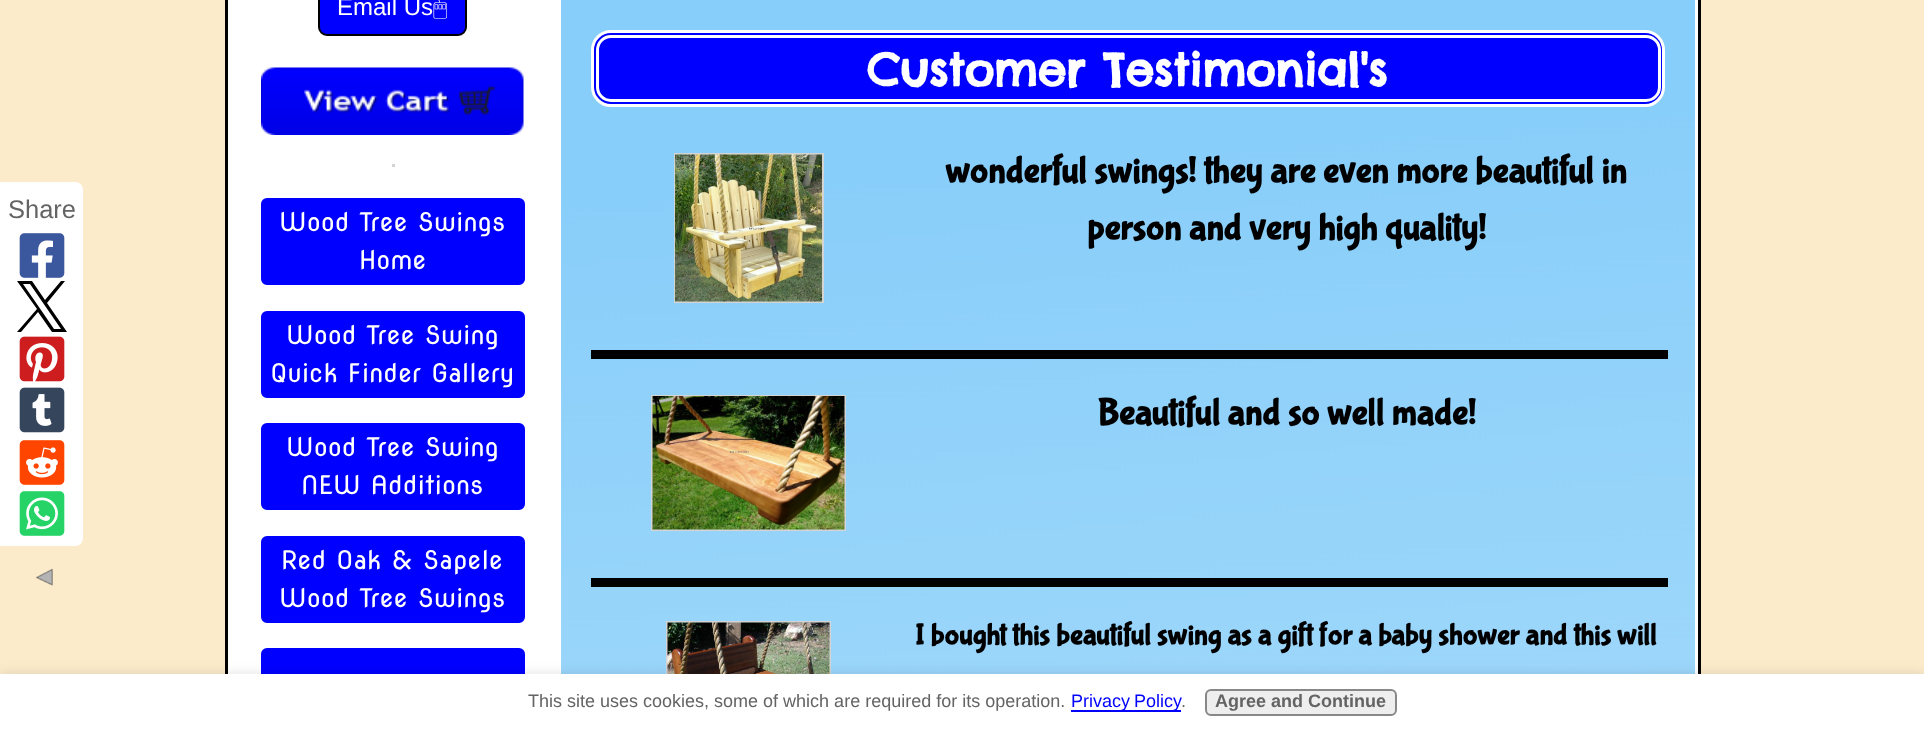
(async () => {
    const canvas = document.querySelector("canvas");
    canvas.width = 1924;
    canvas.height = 729;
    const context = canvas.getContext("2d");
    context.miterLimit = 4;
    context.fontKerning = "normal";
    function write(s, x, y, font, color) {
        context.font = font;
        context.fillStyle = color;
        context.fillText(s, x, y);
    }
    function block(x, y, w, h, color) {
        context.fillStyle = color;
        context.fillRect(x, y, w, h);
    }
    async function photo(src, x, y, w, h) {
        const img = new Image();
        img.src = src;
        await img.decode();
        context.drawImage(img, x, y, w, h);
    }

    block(0, 0, 1924, 729, "rgb(251, 235, 203)");
    block(228, 0, 330, 674, "rgb(255, 255, 255)");
    context.strokeStyle = "rgb(0, 0, 0)";
    context.lineWidth = 3;
    context.strokeRect(226.5, -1.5, 1473, 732);
    context.fillStyle = "rgb(0, 0, 255)";
    context.beginPath();
    context.roundRect(319, -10, 147, 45, 8);
    context.fill();
    context.lineWidth = 2;
    context.stroke();
    write("Email Us", 337, 15, "24px Arimo", "rgb(255, 255, 255)");
    write("🖱", 433, 15, "24px FreeSerif", "rgb(255, 255, 255)");
    await photo("media/1.png", 261, 67, 263, 68);
    block(392, 164, 3, 3, "rgb(212, 212, 212)");
    context.fillStyle = "rgb(0, 0, 255)";
    context.beginPath();
    context.roundRect(259.5, 196.5, 267, 90, 7.5);
    context.fill();
    context.strokeStyle = "rgb(255, 255, 255)";
    context.lineWidth = 3;
    context.stroke();
    write("Wood Tree Swings", 279, 231, "25.5px Nova Round", "rgb(255, 255, 255)");
    write("Home", 359, 269, "25.5px Nova Round", "rgb(255, 255, 255)");
    context.fillStyle = "rgb(0, 0, 255)";
    context.beginPath();
    context.roundRect(259.5, 309.5, 267, 90, 7.5);
    context.fill();
    context.stroke();
    write("Wood Tree Swing", 286, 344, "25.5px Nova Round", "rgb(255, 255, 255)");
    write("Quick Finder Gallery", 270, 382, "25.5px Nova Round", "rgb(255, 255, 255)");
    context.fillStyle = "rgb(0, 0, 255)";
    context.beginPath();
    context.roundRect(259.5, 421.5, 267, 90, 7.5);
    context.fill();
    context.stroke();
    write("Wood Tree Swing", 286, 456, "25.5px Nova Round", "rgb(255, 255, 255)");
    write("NEW Additions", 301, 494, "25.5px Nova Round", "rgb(255, 255, 255)");
    context.fillStyle = "rgb(0, 0, 255)";
    context.beginPath();
    context.roundRect(259.5, 534.5, 267, 90, 7.5);
    context.fill();
    context.stroke();
    write("Red Oak & Sapele", 281, 569, "25.5px Nova Round", "rgb(255, 255, 255)");
    write("Wood Tree Swings", 279, 607, "25.5px Nova Round", "rgb(255, 255, 255)");
    context.fillStyle = "rgb(0, 0, 255)";
    context.beginPath();
    context.roundRect(259.5, 646.5, 267, 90, 7.5);
    context.fill();
    context.stroke();
    await photo("media/2.png", 561, 0, 1134, 674);
    context.strokeRect(559.5, -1.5, 1137, 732);
    context.beginPath();
    context.roundRect(592.5, 31.5, 1071, 74, 18.5);
    context.fill();
    context.stroke();
    context.beginPath();
    context.roundRect(597.5, 36.5, 1062, 64, 13.5);
    context.stroke();
    write("Customer Testimonial's", 867, 86, "bold 45px Chelsea Market", "rgb(255, 255, 255)");
    context.beginPath();
    context.roundRect(0, 182, 83, 364, [0, 8, 8, 0]);
    context.fill();
    write("Share", 8, 218, "25.5px Arimo", "rgb(100, 100, 100)");
    await photo("media/3.png", 19, 233, 46, 45);
    context.fillStyle = "rgb(0, 0, 0)";
    context.beginPath();
    context.moveTo(47, 303);
    context.lineTo(65, 281);
    context.lineTo(61, 281);
    context.lineTo(45, 300);
    context.lineTo(32, 281);
    context.lineTo(17, 281);
    context.lineTo(37, 309);
    context.lineTo(17, 332);
    context.lineTo(21, 332);
    context.lineTo(38, 312);
    context.lineTo(52, 332);
    context.lineTo(67, 332);
    context.closePath();
    context.moveTo(41, 310);
    context.lineTo(23, 284);
    context.lineTo(30, 284);
    context.lineTo(61, 329);
    context.lineTo(54, 329);
    context.closePath();
    context.fill();
    await photo("media/4.png", 19, 336, 46, 46);
    await photo("media/5.png", 19, 387, 46, 46);
    await photo("media/6.png", 19, 440, 46, 45);
    await photo("media/7.png", 19, 491, 46, 45);
    await photo("media/8.png", 35, 568, 18, 18);
    context.strokeStyle = "rgb(212, 212, 212)";
    context.lineWidth = 2;
    context.strokeRect(675, 154, 148, 148);
    await photo("media/9.png", 675, 154, 147, 148);
    write("wonderful swings! they are even more beautiful in", 945, 182, "bold 37.5px Bubblegum Sans", "rgb(0, 0, 0)");
    write("person and very high quality!", 1087, 239, "bold 37.5px Bubblegum Sans", "rgb(0, 0, 0)");
    block(591, 350, 1077, 9, "rgb(0, 0, 0)");
    context.strokeRect(652, 396, 193, 134);
    await photo("media/10.png", 652, 396, 193, 134);
    write("Beautiful and so well made!", 1097, 424, "bold 37.5px Bubblegum Sans", "rgb(0, 0, 0)");
    block(591, 578, 1077, 9, "rgb(0, 0, 0)");
    context.strokeRect(667, 622, 163, 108);
    await photo("media/11.png", 667, 622, 163, 52);
    write("I bought this beautiful swing as a gift for a baby shower and this will", 915, 644, "bold 30px Bubblegum Sans", "rgb(0, 0, 0)");
    context.fillStyle = "rgba(0, 0, 0, 0.2)";
    context.filter = "blur(7.5px)";
    context.beginPath();
    context.rect(-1, 678, 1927, 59);
    context.fill();
    context.filter = "none";
    block(0, 674, 1924, 55, "rgb(255, 255, 255)");
    write("This site uses cookies, some of which are required for its operation.", 528, 707, "18px Liberation Sans", "rgb(100, 100, 100)");
    block(1071, 710, 110, 2, "rgb(0, 0, 255)");
    context.wordSpacing = "-1px";
    write("Privacy Policy", 1071, 707, "18px Liberation Sans", "rgb(0, 0, 255)");
    context.wordSpacing = "0px";
    write(".", 1181, 707, "18px Liberation Sans", "rgb(100, 100, 100)");
    context.fillStyle = "rgb(238, 238, 238)";
    context.beginPath();
    context.roundRect(1206, 690, 190, 25, 5);
    context.fill();
    context.strokeStyle = "rgb(136, 136, 136)";
    context.stroke();
    write("Agree and Continue", 1215, 707, "bold 18px Liberation Sans", "rgb(100, 100, 100)");
})();
